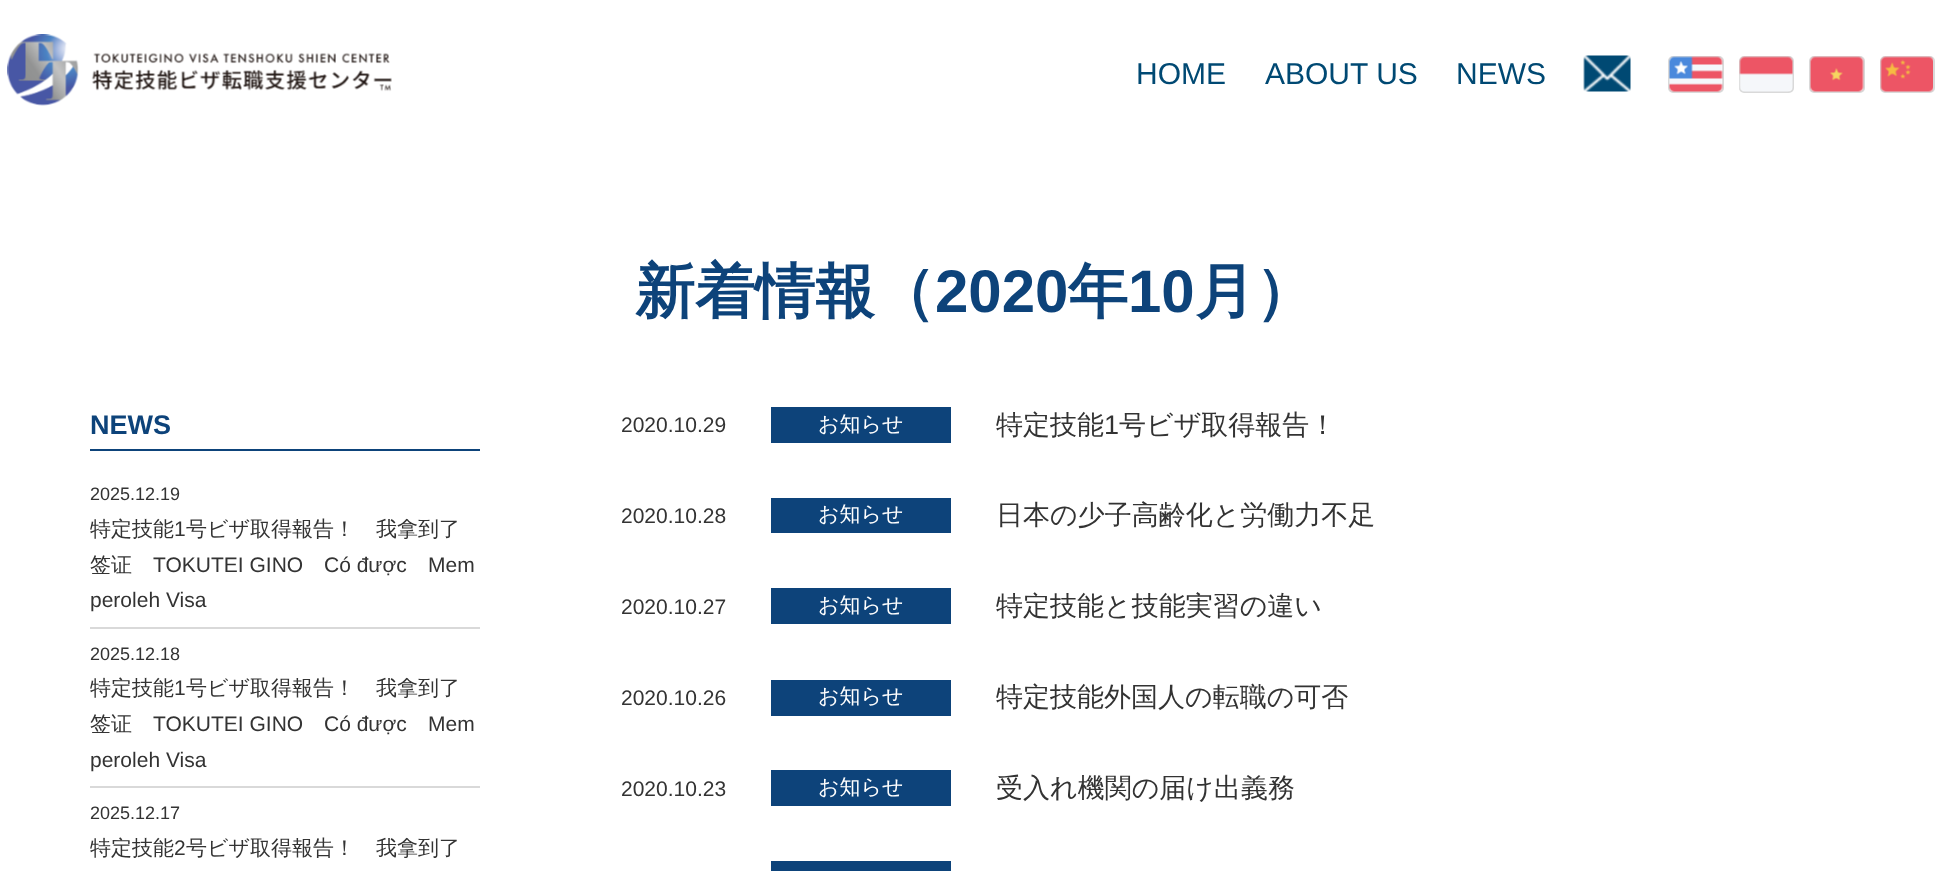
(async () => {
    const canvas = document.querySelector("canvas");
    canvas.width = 1949;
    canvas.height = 871;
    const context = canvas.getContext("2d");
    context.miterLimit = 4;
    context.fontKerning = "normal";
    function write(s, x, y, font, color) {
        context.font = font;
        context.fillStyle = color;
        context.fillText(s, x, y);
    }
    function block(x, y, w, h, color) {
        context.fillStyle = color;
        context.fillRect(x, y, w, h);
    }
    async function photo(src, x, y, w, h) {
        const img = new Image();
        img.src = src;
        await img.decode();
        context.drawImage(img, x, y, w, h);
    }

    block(0, 0, 1949, 871, "rgb(255, 255, 255)");
    await photo("media/1.png", 7, 34, 385, 72);
    write("HOME", 1136, 84, "30px Liberation Sans", "rgb(0, 73, 115)");
    write("ABOUT US", 1265, 84, "30px Liberation Sans", "rgb(0, 73, 115)");
    write("NEWS", 1456, 84, "30px Liberation Sans", "rgb(0, 73, 115)");
    await photo("media/2.png", 1583, 55, 48, 37);
    context.beginPath();
    context.roundRect(1669, 57, 54, 35, 4);
    context.strokeStyle = "rgb(217, 217, 217)";
    context.lineWidth = 2;
    context.stroke();
    await photo("media/3.png", 1669, 56, 54, 36);
    context.beginPath();
    context.roundRect(1740, 57, 53, 35, 4);
    context.stroke();
    await photo("media/4.png", 1739, 56, 54, 36);
    context.beginPath();
    context.roundRect(1810, 57, 54, 35, 4);
    context.stroke();
    await photo("media/5.png", 1810, 56, 54, 36);
    context.beginPath();
    context.roundRect(1881, 57, 53, 35, 4);
    context.stroke();
    await photo("media/6.png", 1880, 56, 53, 36);
    write("新着情報（", 635, 312, "bold 60px WenQuanYi Zen Hei", "rgb(13, 67, 122)");
    write("2020", 935, 312, "bold 60px Liberation Sans", "rgb(13, 67, 122)");
    write("年", 1068, 312, "bold 60px WenQuanYi Zen Hei", "rgb(13, 67, 122)");
    write("10", 1128, 312, "bold 60px Liberation Sans", "rgb(13, 67, 122)");
    write("月）", 1195, 312, "bold 60px WenQuanYi Zen Hei", "rgb(13, 67, 122)");
    block(90, 449, 390, 2, "rgb(13, 67, 122)");
    write("NEWS", 90, 434, "bold 27px Liberation Sans", "rgb(13, 67, 122)");
    block(90, 627, 390, 2, "rgb(217, 217, 217)");
    write("2025.12.19", 90, 500, "18px Liberation Sans", "rgb(51, 51, 51)");
    write("特定技能", 90, 536, "500 21px WenQuanYi Zen Hei", "rgb(51, 51, 51)");
    write("1", 174, 536, "21px Liberation Sans", "rgb(51, 51, 51)");
    write("号ビザ取得報告！　我拿到了", 186, 536, "500 21px WenQuanYi Zen Hei", "rgb(51, 51, 51)");
    write("签证", 90, 572, "500 21px WenQuanYi Zen Hei", "rgb(51, 51, 51)");
    write("TOKUTEI GINO", 153, 572, "21px Liberation Sans", "rgb(51, 51, 51)");
    write("Có được", 324, 572, "21px Liberation Sans", "rgb(51, 51, 51)");
    write("Mem", 428, 572, "21px Liberation Sans", "rgb(51, 51, 51)");
    write("peroleh Visa", 90, 607, "21px Liberation Sans", "rgb(51, 51, 51)");
    block(90, 786, 390, 2, "rgb(217, 217, 217)");
    write("2025.12.18", 90, 660, "18px Liberation Sans", "rgb(51, 51, 51)");
    write("特定技能", 90, 695, "500 21px WenQuanYi Zen Hei", "rgb(51, 51, 51)");
    write("1", 174, 695, "21px Liberation Sans", "rgb(51, 51, 51)");
    write("号ビザ取得報告！　我拿到了", 186, 695, "500 21px WenQuanYi Zen Hei", "rgb(51, 51, 51)");
    write("签证", 90, 731, "500 21px WenQuanYi Zen Hei", "rgb(51, 51, 51)");
    write("TOKUTEI GINO", 153, 731, "21px Liberation Sans", "rgb(51, 51, 51)");
    write("Có được", 324, 731, "21px Liberation Sans", "rgb(51, 51, 51)");
    write("Mem", 428, 731, "21px Liberation Sans", "rgb(51, 51, 51)");
    write("peroleh Visa", 90, 767, "21px Liberation Sans", "rgb(51, 51, 51)");
    write("2025.12.17", 90, 819, "18px Liberation Sans", "rgb(51, 51, 51)");
    write("特定技能", 90, 855, "500 21px WenQuanYi Zen Hei", "rgb(51, 51, 51)");
    write("2", 174, 855, "21px Liberation Sans", "rgb(51, 51, 51)");
    write("号ビザ取得報告！　我拿到了", 186, 855, "500 21px WenQuanYi Zen Hei", "rgb(51, 51, 51)");
    write("2020.10.29", 621, 432, "21px Liberation Sans", "rgb(51, 51, 51)");
    block(771, 407, 180, 36, "rgb(13, 67, 122)");
    write("お知らせ", 818, 431, "500 21px WenQuanYi Zen Hei", "rgb(255, 255, 255)");
    write("特定技能", 996, 434, "500 27px WenQuanYi Zen Hei", "rgb(51, 51, 51)");
    write("1", 1104, 434, "27px Liberation Sans", "rgb(51, 51, 51)");
    write("号ビザ取得報告！", 1119, 434, "500 27px WenQuanYi Zen Hei", "rgb(51, 51, 51)");
    write("2020.10.28", 621, 523, "21px Liberation Sans", "rgb(51, 51, 51)");
    block(771, 498, 180, 35, "rgb(13, 67, 122)");
    write("お知らせ", 818, 521, "500 21px WenQuanYi Zen Hei", "rgb(255, 255, 255)");
    write("日本の少子高齢化と労働力不足", 996, 524, "500 27px WenQuanYi Zen Hei", "rgb(51, 51, 51)");
    write("2020.10.27", 621, 614, "21px Liberation Sans", "rgb(51, 51, 51)");
    block(771, 588, 180, 36, "rgb(13, 67, 122)");
    write("お知らせ", 818, 612, "500 21px WenQuanYi Zen Hei", "rgb(255, 255, 255)");
    write("特定技能と技能実習の違い", 996, 615, "500 27px WenQuanYi Zen Hei", "rgb(51, 51, 51)");
    write("2020.10.26", 621, 705, "21px Liberation Sans", "rgb(51, 51, 51)");
    block(771, 680, 180, 36, "rgb(13, 67, 122)");
    write("お知らせ", 818, 703, "500 21px WenQuanYi Zen Hei", "rgb(255, 255, 255)");
    write("特定技能外国人の転職の可否", 996, 706, "500 27px WenQuanYi Zen Hei", "rgb(51, 51, 51)");
    write("2020.10.23", 621, 796, "21px Liberation Sans", "rgb(51, 51, 51)");
    block(771, 770, 180, 36, "rgb(13, 67, 122)");
    write("お知らせ", 818, 794, "500 21px WenQuanYi Zen Hei", "rgb(255, 255, 255)");
    write("受入れ機関の届け出義務", 996, 797, "500 27px WenQuanYi Zen Hei", "rgb(51, 51, 51)");
    block(771, 861, 180, 10, "rgb(13, 67, 122)");
})();
